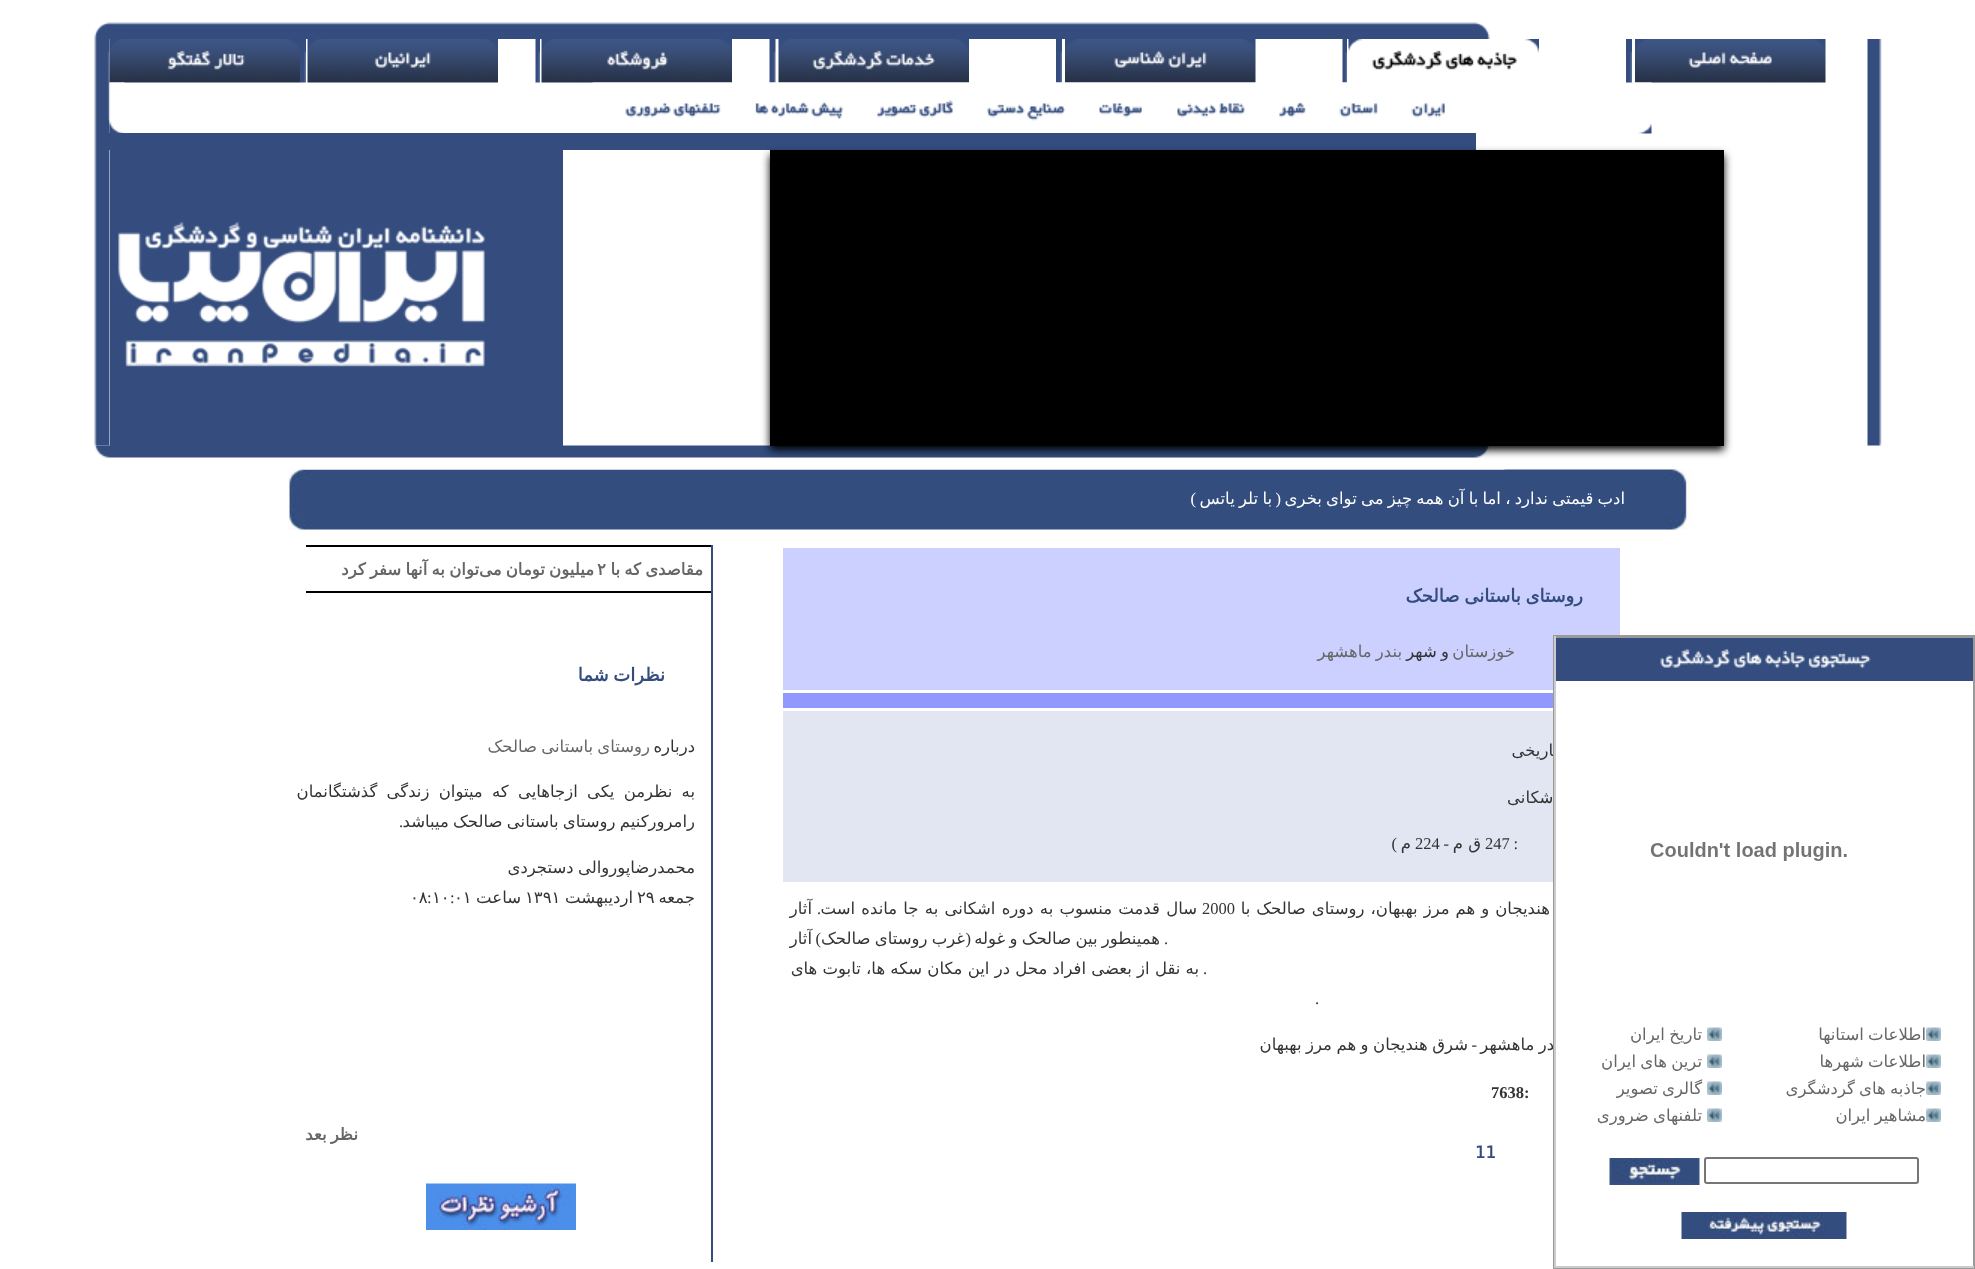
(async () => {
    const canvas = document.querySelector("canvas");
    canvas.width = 1975;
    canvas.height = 1269;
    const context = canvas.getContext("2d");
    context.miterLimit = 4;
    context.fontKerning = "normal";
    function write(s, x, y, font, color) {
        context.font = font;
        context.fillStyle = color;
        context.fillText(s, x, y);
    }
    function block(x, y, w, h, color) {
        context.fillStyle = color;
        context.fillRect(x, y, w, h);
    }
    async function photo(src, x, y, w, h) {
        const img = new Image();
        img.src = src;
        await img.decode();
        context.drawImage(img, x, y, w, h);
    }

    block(0, 0, 1975, 1269, "rgb(255, 255, 255)");
    block(783, 548, 837, 142, "rgb(204, 208, 255)");
    block(783, 711, 770, 171, "rgb(226, 230, 243)");
    context.direction = "rtl";
    write("تاریخی", 1558, 756, "16.5px DejaVu Sans", "rgb(51, 51, 51)");
    write("اشکانی", 1558, 803, "16.5px DejaVu Sans", "rgb(51, 51, 51)");
    context.wordSpacing = "0.75px";
    write("در شرق هندیجان و هم مرز بهبهان، روستای صالحک با", 1613, 914, "16.5px DejaVu Sans", "rgb(51, 51, 51)");
    context.wordSpacing = "-0.75px";
    write("بندر ماهشهر", 1565, 1050, "16.5px DejaVu Sans", "rgb(51, 51, 51)");
    block(1556, 681, 64, 372, "rgb(255, 255, 255)");
    context.strokeStyle = "rgb(153, 153, 153)";
    context.lineWidth = 2;
    context.strokeRect(1554, 636, 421, 632);
    block(1554, 637, 420, 1, "rgb(153, 153, 153)");
    block(1973, 636, 1, 632, "rgb(153, 153, 153)");
    block(1554, 1266, 420, 2, "rgb(204, 204, 204)");
    block(1554, 636, 2, 632, "rgb(204, 204, 204)");
    block(1556, 638, 417, 43, "rgb(52, 77, 126)");
    await photo("media/1.png", 1660, 649, 211, 19);
    await photo("media/2.png", 1650, 842, 197, 19);
    await photo("media/3.png", 1926, 1027, 15, 14);
    context.wordSpacing = "-1px";
    write("اطلاعات استانها", 1926, 1040, "16.5px DejaVu Sans", "rgb(102, 102, 102)");
    await photo("media/3.png", 1707, 1027, 15, 14);
    write("تاریخ ایران", 1702, 1040, "16.5px DejaVu Sans", "rgb(102, 102, 102)");
    await photo("media/3.png", 1926, 1054, 15, 14);
    write("اطلاعات شهرها", 1926, 1067, "16.5px DejaVu Sans", "rgb(102, 102, 102)");
    await photo("media/3.png", 1707, 1054, 15, 14);
    write("ترین های ایران", 1702, 1067, "16.5px DejaVu Sans", "rgb(102, 102, 102)");
    write("جاذبه های گردشگری", 1926, 1094, "16.5px DejaVu Sans", "rgb(102, 102, 102)");
    await photo("media/3.png", 1926, 1081, 15, 14);
    await photo("media/3.png", 1707, 1081, 15, 14);
    write("گالری تصویر", 1702, 1094, "16.5px DejaVu Sans", "rgb(102, 102, 102)");
    await photo("media/3.png", 1926, 1108, 15, 14);
    write("مشاهیر ایران", 1926, 1121, "16.5px DejaVu Sans", "rgb(102, 102, 102)");
    await photo("media/3.png", 1707, 1108, 15, 14);
    write("تلفنهای ضروری", 1702, 1121, "16.5px DejaVu Sans", "rgb(102, 102, 102)");
    context.beginPath();
    context.roundRect(1705, 1158, 213, 25, 2);
    context.strokeStyle = "rgb(118, 118, 118)";
    context.stroke();
    await photo("media/4.png", 1609, 1158, 91, 27);
    await photo("media/5.png", 1681, 1212, 166, 27);
    await photo("media/6.png", 94, 22, 1396, 17);
    await photo("media/7.png", 1867, 39, 15, 407);
    await photo("media/8.png", 1635, 39, 191, 44);
    await photo("media/9.png", 1626, 39, 6, 44);
    await photo("media/10.png", 1348, 39, 191, 31);
    await photo("media/11.png", 1342, 39, 5, 44);
    await photo("media/12.png", 1065, 39, 191, 44);
    await photo("media/13.png", 1056, 39, 6, 44);
    await photo("media/14.png", 778, 39, 191, 44);
    await photo("media/15.png", 769, 39, 7, 44);
    await photo("media/16.png", 541, 39, 191, 44);
    await photo("media/17.png", 535, 39, 5, 44);
    await photo("media/18.png", 307, 39, 191, 44);
    await photo("media/19.png", 300, 39, 6, 44);
    await photo("media/21.png", 94, 39, 16, 407);
    await photo("media/20.png", 109, 39, 191, 44);
    await photo("media/22.png", 1635, 82, 17, 52);
    await photo("media/23.png", 1411, 103, 34, 15);
    await photo("media/24.png", 1339, 82, 39, 36);
    await photo("media/25.png", 1279, 102, 27, 16);
    await photo("media/27.png", 1083, 82, 77, 36);
    await photo("media/26.png", 1159, 82, 97, 36);
    await photo("media/28.png", 986, 82, 97, 39);
    await photo("media/29.png", 864, 82, 105, 36);
    await photo("media/30.png", 755, 82, 109, 37);
    await photo("media/31.png", 592, 82, 140, 36);
    await photo("media/32.png", 109, 82, 16, 51);
    block(109, 133, 1367, 17, "rgb(52, 77, 126)");
    block(110, 150, 453, 296, "rgb(52, 77, 126)");
    await photo("media/35.png", 288, 469, 1404, 61);
    await photo("media/34.png", 94, 445, 1411, 25);
    context.fillStyle = "rgb(0, 0, 0)";
    context.filter = "blur(4.5px)";
    context.beginPath();
    context.rect(770, 155, 954, 295);
    context.fill();
    context.filter = "none";
    block(770, 150, 954, 296, "rgb(0, 0, 0)");
    await photo("media/33.png", 118, 221, 367, 146);
    write("ادب قیمتی ندارد ، اما با آن همه چیز می توای بخری", 1625, 504, "16.5px DejaVu Sans", "rgb(255, 255, 255)");
    context.wordSpacing = "0px";
    write("(", 1281, 504, "16.5px Liberation Serif", "rgb(255, 255, 255)");
    context.wordSpacing = "-1px";
    write("با تلر یاتس", 1272, 504, "16.5px DejaVu Sans", "rgb(255, 255, 255)");
    context.wordSpacing = "0px";
    write(")", 1196, 504, "16.5px Liberation Serif", "rgb(255, 255, 255)");
    context.wordSpacing = "-1px";
    write("روستای باستانی صالحک", 1583, 602, "bold 18px DejaVu Sans", "rgb(52, 77, 126)");
    context.wordSpacing = "0px";
    write("خوزستان", 1515, 657, "16.5px DejaVu Sans", "rgb(102, 102, 102)");
    context.wordSpacing = "-1px";
    write("و شهر", 1449, 657, "16.5px DejaVu Sans", "rgb(51, 51, 51)");
    write("بندر ماهشهر", 1402, 657, "16.5px DejaVu Sans", "rgb(102, 102, 102)");
    block(783, 693, 770, 15, "rgb(145, 153, 255)");
    context.wordSpacing = "0px";
    write(":", 1518, 849, "16.5px Liberation Serif", "rgb(51, 51, 51)");
    context.direction = "ltr";
    write("247", 1485, 849, "16.5px Liberation Serif", "rgb(51, 51, 51)");
    context.direction = "rtl";
    write("ق م", 1481, 849, "16.5px DejaVu Sans", "rgb(51, 51, 51)");
    write("-", 1449, 849, "16.5px Liberation Serif", "rgb(51, 51, 51)");
    context.direction = "ltr";
    write("224", 1415, 849, "16.5px Liberation Serif", "rgb(51, 51, 51)");
    context.direction = "rtl";
    write("م", 1411, 849, "16.5px DejaVu Sans", "rgb(51, 51, 51)");
    write(")", 1397, 849, "16.5px Liberation Serif", "rgb(51, 51, 51)");
    context.direction = "ltr";
    write("2000", 1202, 914, "16.5px Liberation Serif", "rgb(51, 51, 51)");
    context.wordSpacing = "1px";
    context.direction = "rtl";
    write("سال قدمت منسوب به دوره اشکانی به جا مانده است", 1197, 914, "16.5px DejaVu Sans", "rgb(51, 51, 51)");
    context.wordSpacing = "0px";
    write(".", 821, 914, "16.5px Liberation Serif", "rgb(51, 51, 51)");
    write("آثار", 812, 914, "16.5px DejaVu Sans", "rgb(51, 51, 51)");
    write(".", 1168, 944, "16.5px Liberation Serif", "rgb(51, 51, 51)");
    context.wordSpacing = "-1px";
    write("همینطور بین صالحک و غوله", 1160, 944, "16.5px DejaVu Sans", "rgb(51, 51, 51)");
    write("غرب روستای صالحک", 965, 944, "16.5px DejaVu Sans", "rgb(51, 51, 51)");
    context.wordSpacing = "0px";
    write("(", 971, 944, "16.5px Liberation Serif", "rgb(51, 51, 51)");
    write(")", 821, 944, "16.5px Liberation Serif", "rgb(51, 51, 51)");
    write("آثار", 812, 944, "16.5px DejaVu Sans", "rgb(51, 51, 51)");
    write(".", 1207, 974, "16.5px Liberation Serif", "rgb(51, 51, 51)");
    write("به نقل از بعضی افراد محل در این مکان سکه ها، تابوت های", 1199, 974, "16.5px DejaVu Sans", "rgb(51, 51, 51)");
    write(".", 1319, 1004, "16.5px Liberation Serif", "rgb(51, 51, 51)");
    write("-", 1477, 1050, "16.5px Liberation Serif", "rgb(51, 51, 51)");
    context.wordSpacing = "-0.75px";
    write("شرق هندیجان و هم مرز بهبهان", 1468, 1050, "16.5px DejaVu Sans", "rgb(51, 51, 51)");
    context.wordSpacing = "0px";
    context.direction = "ltr";
    write("7638:", 1491, 1098, "bold 16.5px Liberation Serif", "rgb(51, 51, 51)");
    write("11", 1475, 1158, "bold 16.5px DejaVu Sans", "rgb(52, 77, 126)");
    block(711, 545, 2, 717, "rgb(52, 77, 126)");
    block(306, 545, 405, 2, "rgb(0, 0, 0)");
    block(306, 591, 405, 2, "rgb(0, 0, 0)");
    context.wordSpacing = "-1px";
    context.direction = "rtl";
    write("مقاصدی که با", 703, 575, "bold 16.5px DejaVu Sans", "rgb(102, 102, 102)");
    context.wordSpacing = "0px";
    context.direction = "ltr";
    write("۲", 597, 575, "bold 16.5px DejaVu Sans", "rgb(102, 102, 102)");
    context.wordSpacing = "-1px";
    context.direction = "rtl";
    write("توان به آنها سفر کرد", 479, 575, "bold 16.5px DejaVu Sans", "rgb(102, 102, 102)");
    write("میلیون تومان می", 594, 575, "bold 16.5px DejaVu Sans", "rgb(102, 102, 102)");
    write("نظرات شما", 665, 681, "bold 18px DejaVu Sans", "rgb(52, 77, 126)");
    context.wordSpacing = "0px";
    write("درباره", 695, 752, "16.5px DejaVu Sans", "rgb(51, 51, 51)");
    context.wordSpacing = "-1px";
    write("روستای باستانی صالحک", 650, 752, "16.5px DejaVu Sans", "rgb(102, 102, 102)");
    context.wordSpacing = "4px";
    write("به نظرمن یکی ازجاهایی که میتوان زندگی گذشتگانمان", 695, 797, "16.5px DejaVu Sans", "rgb(51, 51, 51)");
    context.save();
    context.beginPath();
    context.rect(297, 732, 399, 389);
    context.clip();
    context.wordSpacing = "-1px";
    write("رامرورکنیم روستای باستانی صالحک میباشد", 695, 827, "16.5px DejaVu Sans", "rgb(51, 51, 51)");
    context.restore();
    context.wordSpacing = "0px";
    write(".", 403, 827, "16.5px Liberation Serif", "rgb(51, 51, 51)");
    context.wordSpacing = "-1px";
    write("محمدرضاپوروالی دستجردی", 695, 873, "16.5px DejaVu Sans", "rgb(51, 51, 51)");
    context.wordSpacing = "0px";
    write("جمعه", 695, 903, "16.5px DejaVu Sans", "rgb(51, 51, 51)");
    context.direction = "ltr";
    write("۲۹", 637, 903, "16.5px DejaVu Sans", "rgb(51, 51, 51)");
    context.direction = "rtl";
    write("ارديبهشت", 633, 903, "16.5px DejaVu Sans", "rgb(51, 51, 51)");
    context.direction = "ltr";
    write("۱۳۹۱", 525, 903, "16.5px DejaVu Sans", "rgb(51, 51, 51)");
    context.direction = "rtl";
    write("ساعت", 521, 903, "16.5px DejaVu Sans", "rgb(51, 51, 51)");
    context.direction = "ltr";
    write("۰۱", 454, 903, "16.5px DejaVu Sans", "rgb(51, 51, 51)");
    write(":", 450, 903, "16.5px Liberation Serif", "rgb(51, 51, 51)");
    write("۱۰", 432, 903, "16.5px DejaVu Sans", "rgb(51, 51, 51)");
    write(":", 427, 903, "16.5px Liberation Serif", "rgb(51, 51, 51)");
    write("۰۸", 410, 903, "16.5px DejaVu Sans", "rgb(51, 51, 51)");
    context.wordSpacing = "-1px";
    context.direction = "rtl";
    write("نظر بعد", 358, 1140, "bold 16.5px DejaVu Sans", "rgb(102, 102, 102)");
    await photo("media/36.png", 426, 1183, 150, 47);
})();
